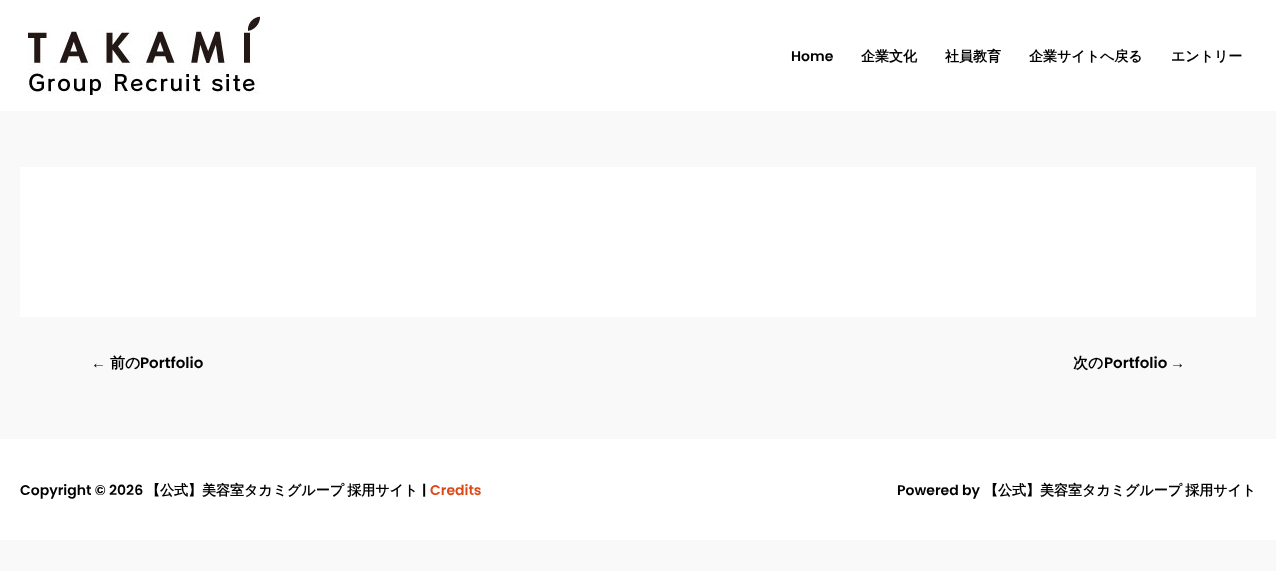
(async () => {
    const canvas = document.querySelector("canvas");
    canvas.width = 1276;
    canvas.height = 571;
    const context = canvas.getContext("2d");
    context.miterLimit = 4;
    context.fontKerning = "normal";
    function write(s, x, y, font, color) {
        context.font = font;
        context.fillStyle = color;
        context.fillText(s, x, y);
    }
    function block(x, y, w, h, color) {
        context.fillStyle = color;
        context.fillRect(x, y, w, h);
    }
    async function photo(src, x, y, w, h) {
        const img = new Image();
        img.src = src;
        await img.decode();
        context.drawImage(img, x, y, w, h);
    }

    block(0, 0, 1276, 571, "rgb(249, 249, 249)");
    block(0, 0, 1276, 111, "rgb(255, 255, 255)");
    await photo("media/1.png", 28, 14, 232, 83);
    write("Home", 791, 61, "600 14px Poppins", "rgb(0, 0, 0)");
    write("企業文化", 861, 61, "bold 14px WenQuanYi Zen Hei", "rgb(0, 0, 0)");
    write("社員教育", 945, 61, "bold 14px WenQuanYi Zen Hei", "rgb(0, 0, 0)");
    write("企業サイトへ戻る", 1029, 61, "bold 14px WenQuanYi Zen Hei", "rgb(0, 0, 0)");
    write("エントリー", 1171, 61, "bold 14px WenQuanYi Zen Hei", "rgb(0, 0, 0)");
    block(20, 167, 1236, 150, "rgb(255, 255, 255)");
    write("←", 91, 368, "bold 15px Liberation Sans", "rgb(0, 0, 0)");
    write("前の", 110, 368, "bold 15px WenQuanYi Zen Hei", "rgb(0, 0, 0)");
    write("Portfolio", 140, 368, "600 15px Poppins", "rgb(0, 0, 0)");
    write("次の", 1073, 368, "bold 15px WenQuanYi Zen Hei", "rgb(0, 0, 0)");
    write("Portfolio", 1104, 368, "600 15px Poppins", "rgb(0, 0, 0)");
    write("→", 1170, 368, "bold 15px Liberation Sans", "rgb(0, 0, 0)");
    block(0, 439, 1276, 101, "rgb(255, 255, 255)");
    write("Copyright © 2026", 20, 495, "600 14px Poppins", "rgb(0, 0, 0)");
    context.wordSpacing = "-1px";
    write("【公式】美容室タカミグループ 採用サイト", 146, 495, "bold 14px WenQuanYi Zen Hei", "rgb(0, 0, 0)");
    context.wordSpacing = "0px";
    write("|", 422, 495, "600 14px Poppins", "rgb(0, 0, 0)");
    write("Credits", 430, 495, "600 14px Poppins", "rgb(219, 73, 23)");
    write("Powered by", 897, 495, "600 14px Poppins", "rgb(0, 0, 0)");
    context.wordSpacing = "-1px";
    write("【公式】美容室タカミグループ 採用サイト", 984, 495, "bold 14px WenQuanYi Zen Hei", "rgb(0, 0, 0)");
})();
